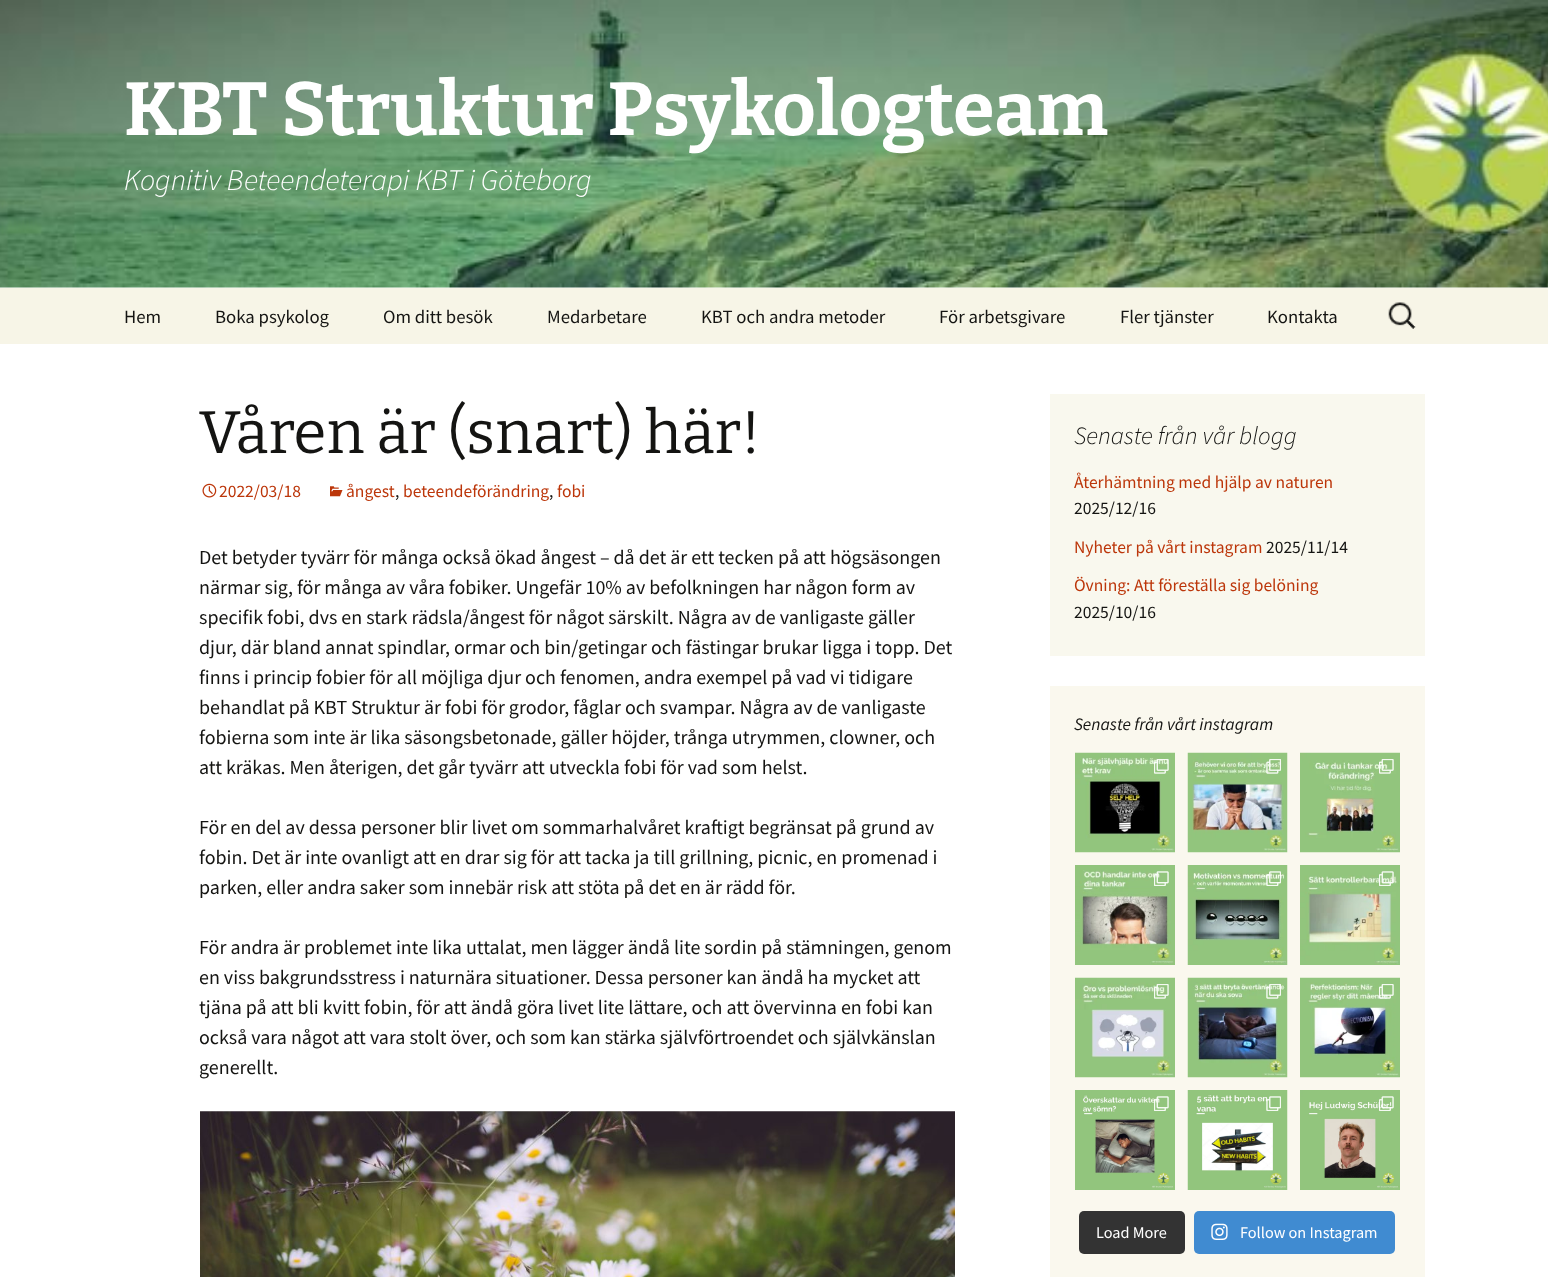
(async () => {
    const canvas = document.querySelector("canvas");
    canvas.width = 1548;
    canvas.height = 1277;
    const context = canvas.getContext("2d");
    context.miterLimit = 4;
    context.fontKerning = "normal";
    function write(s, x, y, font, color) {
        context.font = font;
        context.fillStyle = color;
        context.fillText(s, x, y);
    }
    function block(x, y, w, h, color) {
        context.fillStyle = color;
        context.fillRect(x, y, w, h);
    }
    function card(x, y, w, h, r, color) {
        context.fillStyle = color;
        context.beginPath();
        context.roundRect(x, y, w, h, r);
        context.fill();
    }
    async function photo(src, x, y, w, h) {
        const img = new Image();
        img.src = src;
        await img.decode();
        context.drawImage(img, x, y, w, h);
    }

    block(0, 0, 1548, 1277, "rgb(255, 255, 255)");
    await photo("media/1.png", 0, 0, 1548, 288);
    write("KBT Struktur Psykologteam", 124, 135, "100 75px Bitter", "rgb(255, 255, 255)");
    write("Kognitiv Beteendeterapi KBT i Göteborg", 124, 190, "italic 300 30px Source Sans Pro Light", "rgb(255, 255, 255)");
    block(0, 288, 1548, 56, "rgb(247, 245, 231)");
    write("Hem", 124, 323, "18.75px Source Sans Pro", "rgb(20, 20, 18)");
    write("Boka psykolog", 215, 323, "18.75px Source Sans Pro", "rgb(20, 20, 18)");
    write("Om ditt besök", 383, 323, "18.75px Source Sans Pro", "rgb(20, 20, 18)");
    write("Medarbetare", 547, 323, "18.75px Source Sans Pro", "rgb(20, 20, 18)");
    write("KBT och andra metoder", 701, 323, "18.75px Source Sans Pro", "rgb(20, 20, 18)");
    write("För arbetsgivare", 939, 323, "18.75px Source Sans Pro", "rgb(20, 20, 18)");
    write("Fler tjänster", 1120, 323, "18.75px Source Sans Pro", "rgb(20, 20, 18)");
    write("Kontakta", 1267, 323, "18.75px Source Sans Pro", "rgb(20, 20, 18)");
    await photo("media/2.png", 1388, 302, 28, 27);
    write("Våren är (snart) här!", 199, 453, "100 60px 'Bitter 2'", "rgb(20, 20, 18)");
    await photo("media/3.png", 202, 483, 15, 15);
    write("2022/03/18", 219, 497, "17.5px Source Sans Pro", "rgb(188, 54, 10)");
    await photo("media/4.png", 330, 486, 13, 11);
    write("ångest", 346, 497, "17.5px Source Sans Pro", "rgb(188, 54, 10)");
    write(",", 395, 497, "17.5px Source Sans Pro", "rgb(20, 20, 18)");
    write("beteendeförändring", 403, 497, "17.5px Source Sans Pro", "rgb(188, 54, 10)");
    write(",", 549, 497, "17.5px Source Sans Pro", "rgb(20, 20, 18)");
    write("fobi", 557, 497, "17.5px Source Sans Pro", "rgb(188, 54, 10)");
    write("Det betyder tyvärr för många också ökad ångest – då det är ett tecken på att högsäsongen", 199, 564, "20px Source Sans Pro", "rgb(20, 20, 18)");
    write("närmar sig, för många av våra fobiker. Ungefär 10% av befolkningen har någon form av", 199, 594, "20px Source Sans Pro", "rgb(20, 20, 18)");
    write("specifik fobi, dvs en stark rädsla/ångest för något särskilt. Några av de vanligaste gäller", 199, 624, "20px Source Sans Pro", "rgb(20, 20, 18)");
    write("djur, där bland annat spindlar, ormar och bin/getingar och fästingar brukar ligga i topp. Det", 199, 654, "20px Source Sans Pro", "rgb(20, 20, 18)");
    write("finns i princip fobier för all möjliga djur och fenomen, andra exempel på vad vi tidigare", 199, 684, "20px Source Sans Pro", "rgb(20, 20, 18)");
    write("behandlat på KBT Struktur är fobi för grodor, fåglar och svampar. Några av de vanligaste", 199, 714, "20px Source Sans Pro", "rgb(20, 20, 18)");
    write("fobierna som inte är lika säsongsbetonade, gäller höjder, trånga utrymmen, clowner, och", 199, 744, "20px Source Sans Pro", "rgb(20, 20, 18)");
    write("att kräkas. Men återigen, det går tyvärr att utveckla fobi för vad som helst.", 199, 774, "20px Source Sans Pro", "rgb(20, 20, 18)");
    write("För en del av dessa personer blir livet om sommarhalvåret kraftigt begränsat på grund av", 199, 834, "20px Source Sans Pro", "rgb(20, 20, 18)");
    write("fobin. Det är inte ovanligt att en drar sig för att tacka ja till grillning, picnic, en promenad i", 199, 864, "20px Source Sans Pro", "rgb(20, 20, 18)");
    write("parken, eller andra saker som innebär risk att stöta på det en är rädd för.", 199, 894, "20px Source Sans Pro", "rgb(20, 20, 18)");
    write("För andra är problemet inte lika uttalat, men lägger ändå lite sordin på stämningen, genom", 199, 954, "20px Source Sans Pro", "rgb(20, 20, 18)");
    write("en viss bakgrundsstress i naturnära situationer. Dessa personer kan ändå ha mycket att", 199, 984, "20px Source Sans Pro", "rgb(20, 20, 18)");
    write("tjäna på att bli kvitt fobin, för att ändå göra livet lite lättare, och att övervinna en fobi kan", 199, 1014, "20px Source Sans Pro", "rgb(20, 20, 18)");
    write("också vara något att vara stolt över, och som kan stärka självförtroendet och självkänslan", 199, 1044, "20px Source Sans Pro", "rgb(20, 20, 18)");
    write("generellt.", 199, 1074, "20px Source Sans Pro", "rgb(20, 20, 18)");
    await photo("media/5.png", 200, 1111, 755, 166);
    block(1050, 394, 375, 262, "rgb(249, 248, 238)");
    write("Senaste från vår blogg", 1074, 444, "italic 300 25px Source Sans Pro Light", "rgb(20, 20, 18)");
    write("Återhämtning med hjälp av naturen", 1074, 488, "17.5px Source Sans Pro", "rgb(188, 54, 10)");
    write("2025/12/16", 1074, 514, "17.5px Source Sans Pro", "rgb(20, 20, 18)");
    write("Nyheter på vårt instagram", 1074, 553, "17.5px Source Sans Pro", "rgb(188, 54, 10)");
    write("2025/11/14", 1266, 553, "17.5px Source Sans Pro", "rgb(20, 20, 18)");
    write("Övning: Att föreställa sig belöning", 1074, 591, "17.5px Source Sans Pro", "rgb(188, 54, 10)");
    write("2025/10/16", 1074, 618, "17.5px Source Sans Pro", "rgb(20, 20, 18)");
    block(1050, 686, 375, 591, "rgb(250, 248, 238)");
    write("Senaste från vårt instagram", 1074, 730, "italic 17.5px Source Sans Pro", "rgb(20, 20, 18)");
    await photo("media/6.png", 1075, 752, 100, 101);
    await photo("media/7.png", 1154, 759, 15, 15);
    await photo("media/8.png", 1187, 752, 101, 101);
    await photo("media/9.png", 1266, 759, 15, 15);
    await photo("media/10.png", 1300, 752, 100, 101);
    await photo("media/11.png", 1379, 759, 15, 15);
    await photo("media/12.png", 1075, 865, 100, 100);
    await photo("media/13.png", 1154, 871, 15, 15);
    await photo("media/14.png", 1187, 865, 101, 100);
    await photo("media/15.png", 1266, 871, 15, 15);
    await photo("media/16.png", 1300, 865, 100, 100);
    await photo("media/17.png", 1379, 871, 15, 15);
    await photo("media/18.png", 1075, 977, 100, 101);
    await photo("media/19.png", 1154, 984, 15, 15);
    await photo("media/20.png", 1187, 977, 101, 101);
    await photo("media/21.png", 1266, 984, 15, 15);
    await photo("media/22.png", 1300, 977, 100, 101);
    await photo("media/23.png", 1379, 984, 15, 15);
    await photo("media/24.png", 1075, 1090, 100, 100);
    await photo("media/25.png", 1154, 1096, 15, 15);
    await photo("media/26.png", 1187, 1090, 101, 100);
    await photo("media/27.png", 1266, 1096, 15, 15);
    await photo("media/28.png", 1300, 1090, 100, 100);
    await photo("media/29.png", 1379, 1096, 15, 15);
    card(1079, 1211, 106, 43, 5, "rgb(51, 51, 51)");
    write("Load More", 1096, 1238, "16.25px Source Sans Pro", "rgb(255, 255, 255)");
    card(1194, 1211, 201, 43, 5, "rgb(64, 139, 209)");
    await photo("media/30.png", 1211, 1223, 17, 17);
    write("Follow on Instagram", 1240, 1238, "16.25px Source Sans Pro", "rgb(255, 255, 255)");
})();
